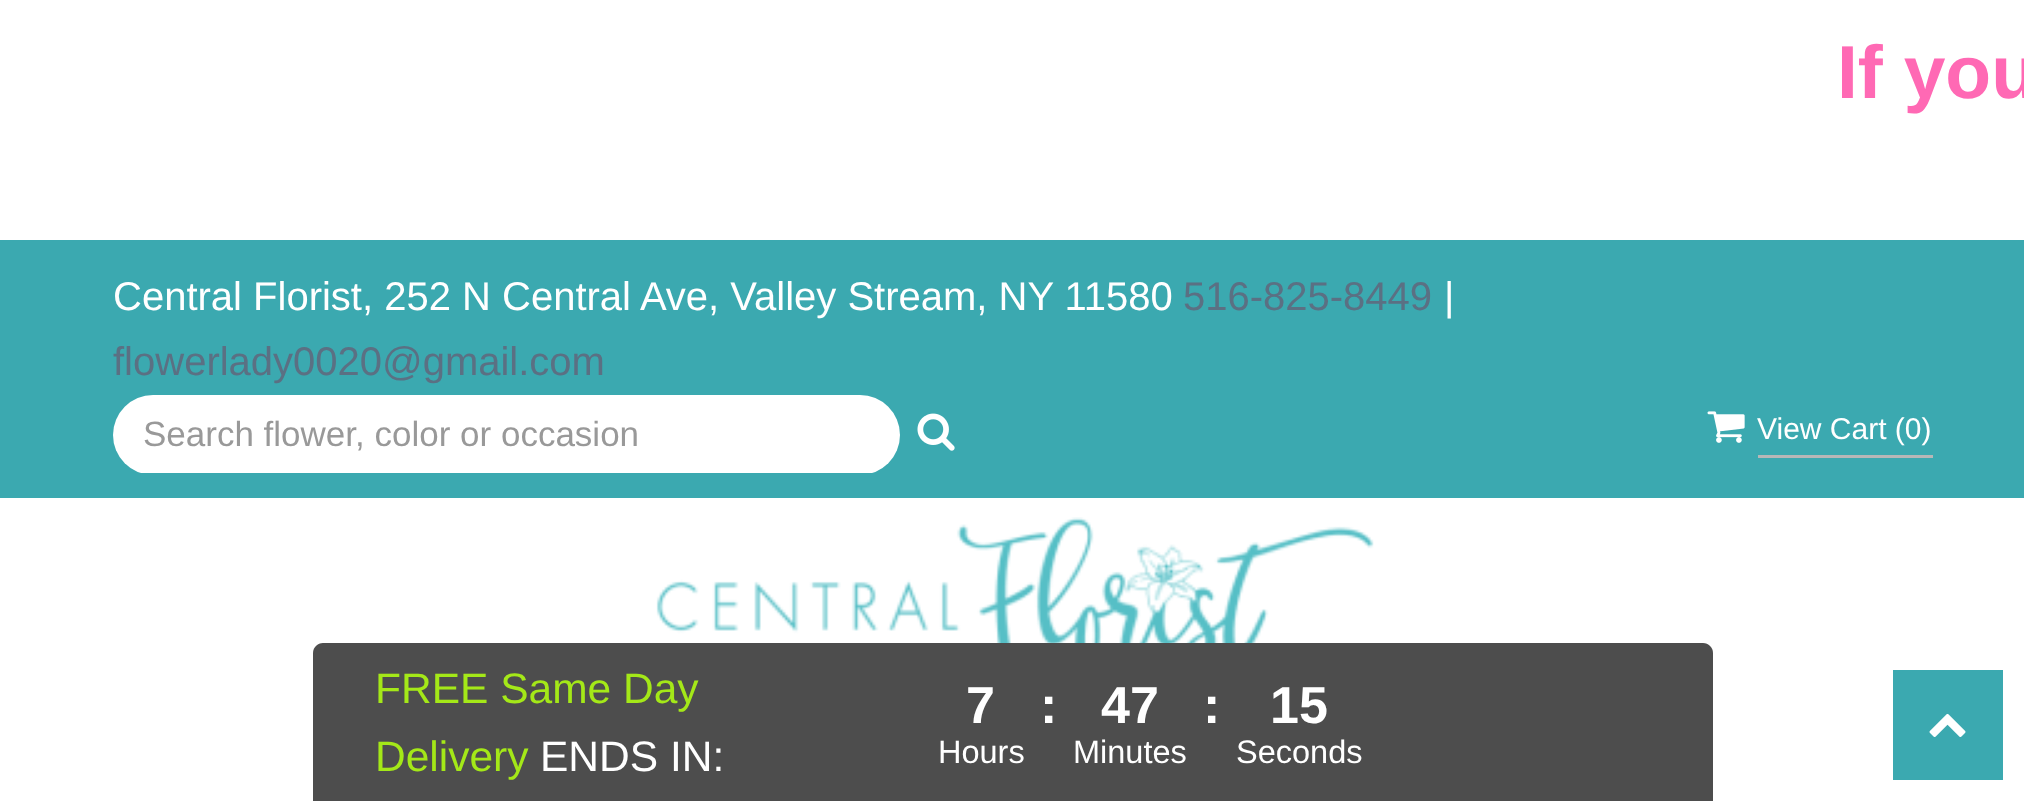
(async () => {
    const canvas = document.querySelector("canvas");
    canvas.width = 2024;
    canvas.height = 801;
    const context = canvas.getContext("2d");
    context.miterLimit = 4;
    context.fontKerning = "normal";
    function write(s, x, y, font, color) {
        context.font = font;
        context.fillStyle = color;
        context.fillText(s, x, y);
    }
    function block(x, y, w, h, color) {
        context.fillStyle = color;
        context.fillRect(x, y, w, h);
    }
    function card(x, y, w, h, r, color) {
        context.fillStyle = color;
        context.beginPath();
        context.roundRect(x, y, w, h, r);
        context.fill();
    }
    async function photo(src, x, y, w, h) {
        const img = new Image();
        img.src = src;
        await img.decode();
        context.drawImage(img, x, y, w, h);
    }

    block(0, 0, 2024, 801, "rgb(255, 255, 255)");
    write("If you", 1837, 98, "bold 75px Liberation Sans", "rgb(255, 105, 180)");
    block(0, 240, 2024, 258, "rgb(59, 169, 176)");
    write("Central Florist, 252 N Central Ave, Valley Stream, NY 11580", 113, 310, "40px Liberation Sans", "rgb(255, 255, 255)");
    write("516-825-8449", 1183, 310, "40px Liberation Sans", "rgb(91, 112, 131)");
    write("|", 1444, 310, "40px Liberation Sans", "rgb(255, 255, 255)");
    write("flowerlady0020@gmail.com", 113, 375, "40px Liberation Sans", "rgb(91, 112, 131)");
    card(113, 395, 787, 80, 40, "rgb(255, 255, 255)");
    block(133, 473, 747, 2, "rgb(59, 169, 176)");
    write("Search flower, color or occasion", 143, 446, "35px Liberation Sans", "rgb(153, 153, 153)");
    await photo("media/1.png", 917, 413, 38, 38);
    await photo("media/2.png", 1707, 411, 38, 32);
    write("View Cart (0)", 1757, 439, "30px Liberation Sans", "rgb(255, 255, 255)");
    block(1758, 455, 175, 3, "rgb(183, 183, 183)");
    await photo("media/3.png", 656, 517, 718, 126);
    context.fillStyle = "rgb(77, 77, 77)";
    context.beginPath();
    context.moveTo(323, 643);
    context.lineTo(1703, 643);
    context.bezierCurveTo(1708.5, 643, 1713, 647.5, 1713, 653);
    context.lineTo(1713, 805);
    context.lineTo(313, 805);
    context.lineTo(313, 653);
    context.bezierCurveTo(313, 647.5, 317.5, 643, 323, 643);
    context.closePath();
    context.fill();
    write("FREE Same Day", 375, 703, "42.5px Liberation Sans", "rgb(164, 232, 24)");
    write("Delivery", 375, 771, "42.5px Liberation Sans", "rgb(164, 232, 24)");
    write("ENDS IN:", 540, 771, "42.5px Liberation Sans", "rgb(255, 255, 255)");
    write("7", 966, 723, "bold 52px Liberation Sans", "rgb(255, 255, 255)");
    write("Hours", 938, 763, "32.5px Liberation Sans", "rgb(255, 255, 255)");
    write(":", 1040, 723, "bold 52px Liberation Sans", "rgb(255, 255, 255)");
    write("47", 1101, 723, "bold 52px Liberation Sans", "rgb(255, 255, 255)");
    write("Minutes", 1073, 763, "32.5px Liberation Sans", "rgb(255, 255, 255)");
    write(":", 1203, 723, "bold 52px Liberation Sans", "rgb(255, 255, 255)");
    write("15", 1270, 723, "bold 52px Liberation Sans", "rgb(255, 255, 255)");
    write("Seconds", 1236, 763, "32.5px Liberation Sans", "rgb(255, 255, 255)");
    block(1893, 670, 110, 110, "rgb(59, 169, 176)");
    await photo("media/4.png", 1929, 713, 37, 24);
})();
